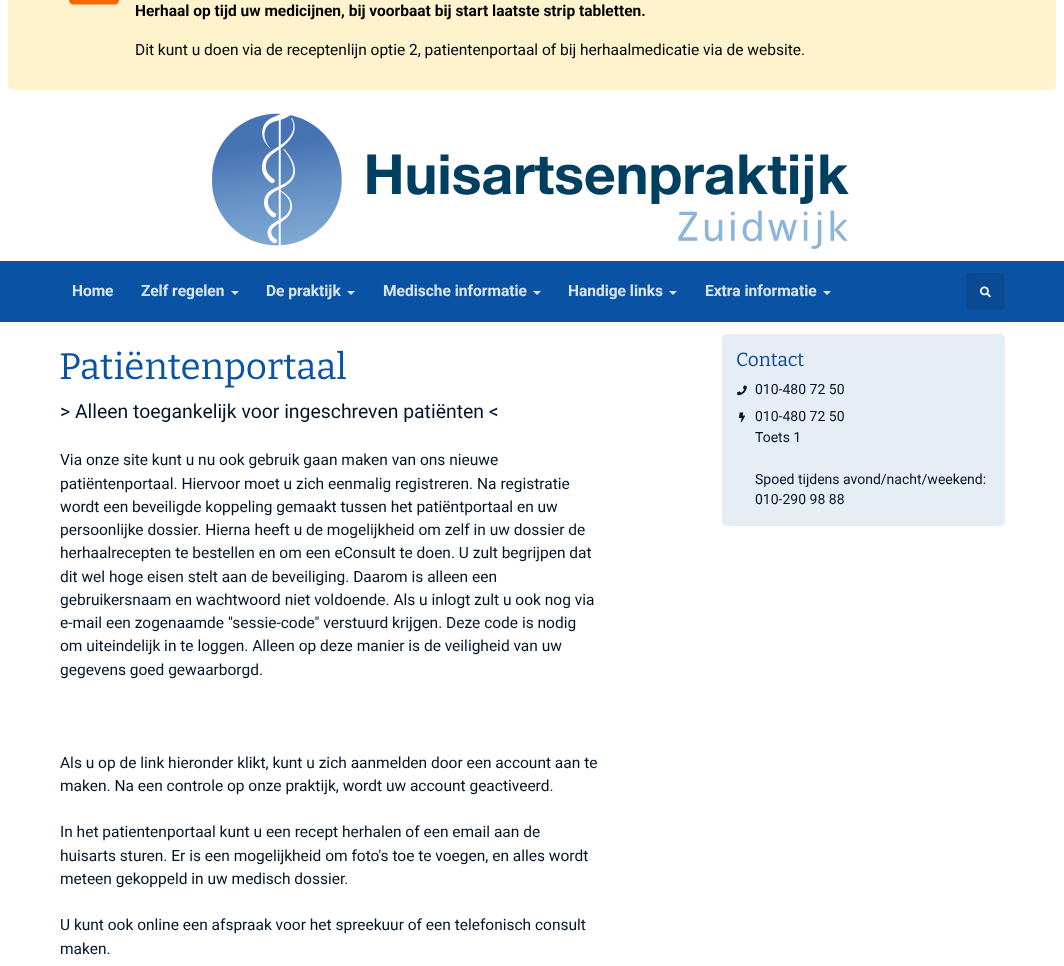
(async () => {
    const canvas = document.querySelector("canvas");
    canvas.width = 1064;
    canvas.height = 966;
    const context = canvas.getContext("2d");
    context.miterLimit = 4;
    context.fontKerning = "normal";
    function write(s, x, y, font, color) {
        context.font = font;
        context.fillStyle = color;
        context.fillText(s, x, y);
    }
    function block(x, y, w, h, color) {
        context.fillStyle = color;
        context.fillRect(x, y, w, h);
    }
    function card(x, y, w, h, r, color) {
        context.fillStyle = color;
        context.beginPath();
        context.roundRect(x, y, w, h, r);
        context.fill();
    }
    async function photo(src, x, y, w, h) {
        const img = new Image();
        img.src = src;
        await img.decode();
        context.drawImage(img, x, y, w, h);
    }

    block(0, 0, 1064, 966, "rgb(255, 255, 255)");
    card(8, -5, 1048, 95, 5, "rgb(255, 243, 205)");
    await photo("media/1.png", 69, 0, 51, 5);
    write("Herhaal op tijd uw medicijnen, bij voorbaat bij start laatste strip tabletten.", 135, 16, "bold 15.5px Roboto", "rgb(0, 0, 0)");
    write("Dit kunt u doen via de receptenlijn optie 2, patientenportaal of bij herhaalmedicatie via de website.", 135, 55, "15.5px Roboto", "rgb(0, 0, 0)");
    await photo("media/2.png", 212, 113, 637, 136);
    block(0, 261, 1064, 61, "rgb(10, 83, 164)");
    write("Home", 72, 296, "bold 15.5px Roboto", "rgb(218, 229, 241)");
    write("Zelf regelen", 141, 296, "bold 15.5px Roboto", "rgb(218, 229, 241)");
    context.beginPath();
    context.moveTo(231, 291);
    context.lineTo(239, 291);
    context.lineTo(235, 295);
    context.closePath();
    context.fill();
    write("De praktijk", 266, 296, "bold 15.5px Roboto", "rgb(218, 229, 241)");
    context.beginPath();
    context.moveTo(347, 291);
    context.lineTo(355, 291);
    context.lineTo(351, 295);
    context.closePath();
    context.fill();
    write("Medische informatie", 383, 296, "bold 15.5px Roboto", "rgb(218, 229, 241)");
    context.beginPath();
    context.moveTo(533, 291);
    context.lineTo(541, 291);
    context.lineTo(537, 295);
    context.closePath();
    context.fill();
    write("Handige links", 568, 296, "bold 15.5px Roboto", "rgb(218, 229, 241)");
    context.beginPath();
    context.moveTo(669, 291);
    context.lineTo(677, 291);
    context.lineTo(673, 295);
    context.closePath();
    context.fill();
    write("Extra informatie", 705, 296, "bold 15.5px Roboto", "rgb(218, 229, 241)");
    context.beginPath();
    context.moveTo(823, 291);
    context.lineTo(831, 291);
    context.lineTo(827, 295);
    context.closePath();
    context.fill();
    context.fillStyle = "rgb(9, 74, 147)";
    context.beginPath();
    context.roundRect(966.5, 273.5, 38, 36, 3.5);
    context.fill();
    context.strokeStyle = "rgb(9, 74, 147)";
    context.stroke();
    await photo("media/3.png", 980, 286, 11, 12);
    write("Patiëntenportaal", 59, 379, "36.75px Bitter", "rgb(10, 83, 164)");
    write("> Alleen toegankelijk voor ingeschreven patiënten <", 60, 418, "19.4px Roboto", "rgb(2, 20, 41)");
    write("Via onze site kunt u nu ook gebruik gaan maken van ons nieuwe", 60, 465, "15.5px Roboto", "rgb(2, 20, 41)");
    write("patiëntenportaal. Hiervoor moet u zich eenmalig registreren. Na registratie", 60, 489, "15.5px Roboto", "rgb(2, 20, 41)");
    write("wordt een beveiligde koppeling gemaakt tussen het patiëntportaal en uw", 60, 512, "15.5px Roboto", "rgb(2, 20, 41)");
    write("persoonlijke dossier. Hierna heeft u de mogelijkheid om zelf in uw dossier de", 60, 535, "15.5px Roboto", "rgb(2, 20, 41)");
    write("herhaalrecepten te bestellen en om een eConsult te doen. U zult begrijpen dat", 60, 558, "15.5px Roboto", "rgb(2, 20, 41)");
    write("dit wel hoge eisen stelt aan de beveiliging. Daarom is alleen een", 60, 582, "15.5px Roboto", "rgb(2, 20, 41)");
    write("gebruikersnaam en wachtwoord niet voldoende. Als u inlogt zult u ook nog via", 60, 605, "15.5px Roboto", "rgb(2, 20, 41)");
    write("e-mail een zogenaamde \"sessie-code\" verstuurd krijgen. Deze code is nodig", 60, 628, "15.5px Roboto", "rgb(2, 20, 41)");
    write("om uiteindelijk in te loggen. Alleen op deze manier is de veiligheid van uw", 60, 651, "15.5px Roboto", "rgb(2, 20, 41)");
    write("gegevens goed gewaarborgd.", 60, 675, "15.5px Roboto", "rgb(2, 20, 41)");
    write("Als u op de link hieronder klikt, kunt u zich aanmelden door een account aan te", 60, 768, "15.5px Roboto", "rgb(2, 20, 41)");
    write("maken. Na een controle op onze praktijk, wordt uw account geactiveerd.", 60, 791, "15.5px Roboto", "rgb(2, 20, 41)");
    write("In het patientenportaal kunt u een recept herhalen of een email aan de", 60, 837, "15.5px Roboto", "rgb(2, 20, 41)");
    write("huisarts sturen. Er is een mogelijkheid om foto's toe te voegen, en alles wordt", 60, 861, "15.5px Roboto", "rgb(2, 20, 41)");
    write("meteen gekoppeld in uw medisch dossier.", 60, 884, "15.5px Roboto", "rgb(2, 20, 41)");
    write("U kunt ook online een afspraak voor het spreekuur of een telefonisch consult", 60, 930, "15.5px Roboto", "rgb(2, 20, 41)");
    write("maken.", 60, 954, "15.5px Roboto", "rgb(2, 20, 41)");
    card(722, 334, 283, 192, 5, "rgb(230, 237, 245)");
    write("Contact", 736, 366, "19px Bitter", "rgb(9, 74, 147)");
    await photo("media/4.png", 737, 385, 10, 11);
    write("010-480 72 50", 755, 394, "14px Roboto", "rgb(2, 20, 41)");
    await photo("media/5.png", 739, 412, 6, 11);
    write("010-480 72 50", 755, 421, "14px Roboto", "rgb(2, 20, 41)");
    write("Toets 1", 755, 442, "14px Roboto", "rgb(2, 20, 41)");
    write("Spoed tijdens avond/nacht/weekend:", 755, 484, "14px Roboto", "rgb(2, 20, 41)");
    write("010-290 98 88", 755, 504, "14px Roboto", "rgb(2, 20, 41)");
})();
